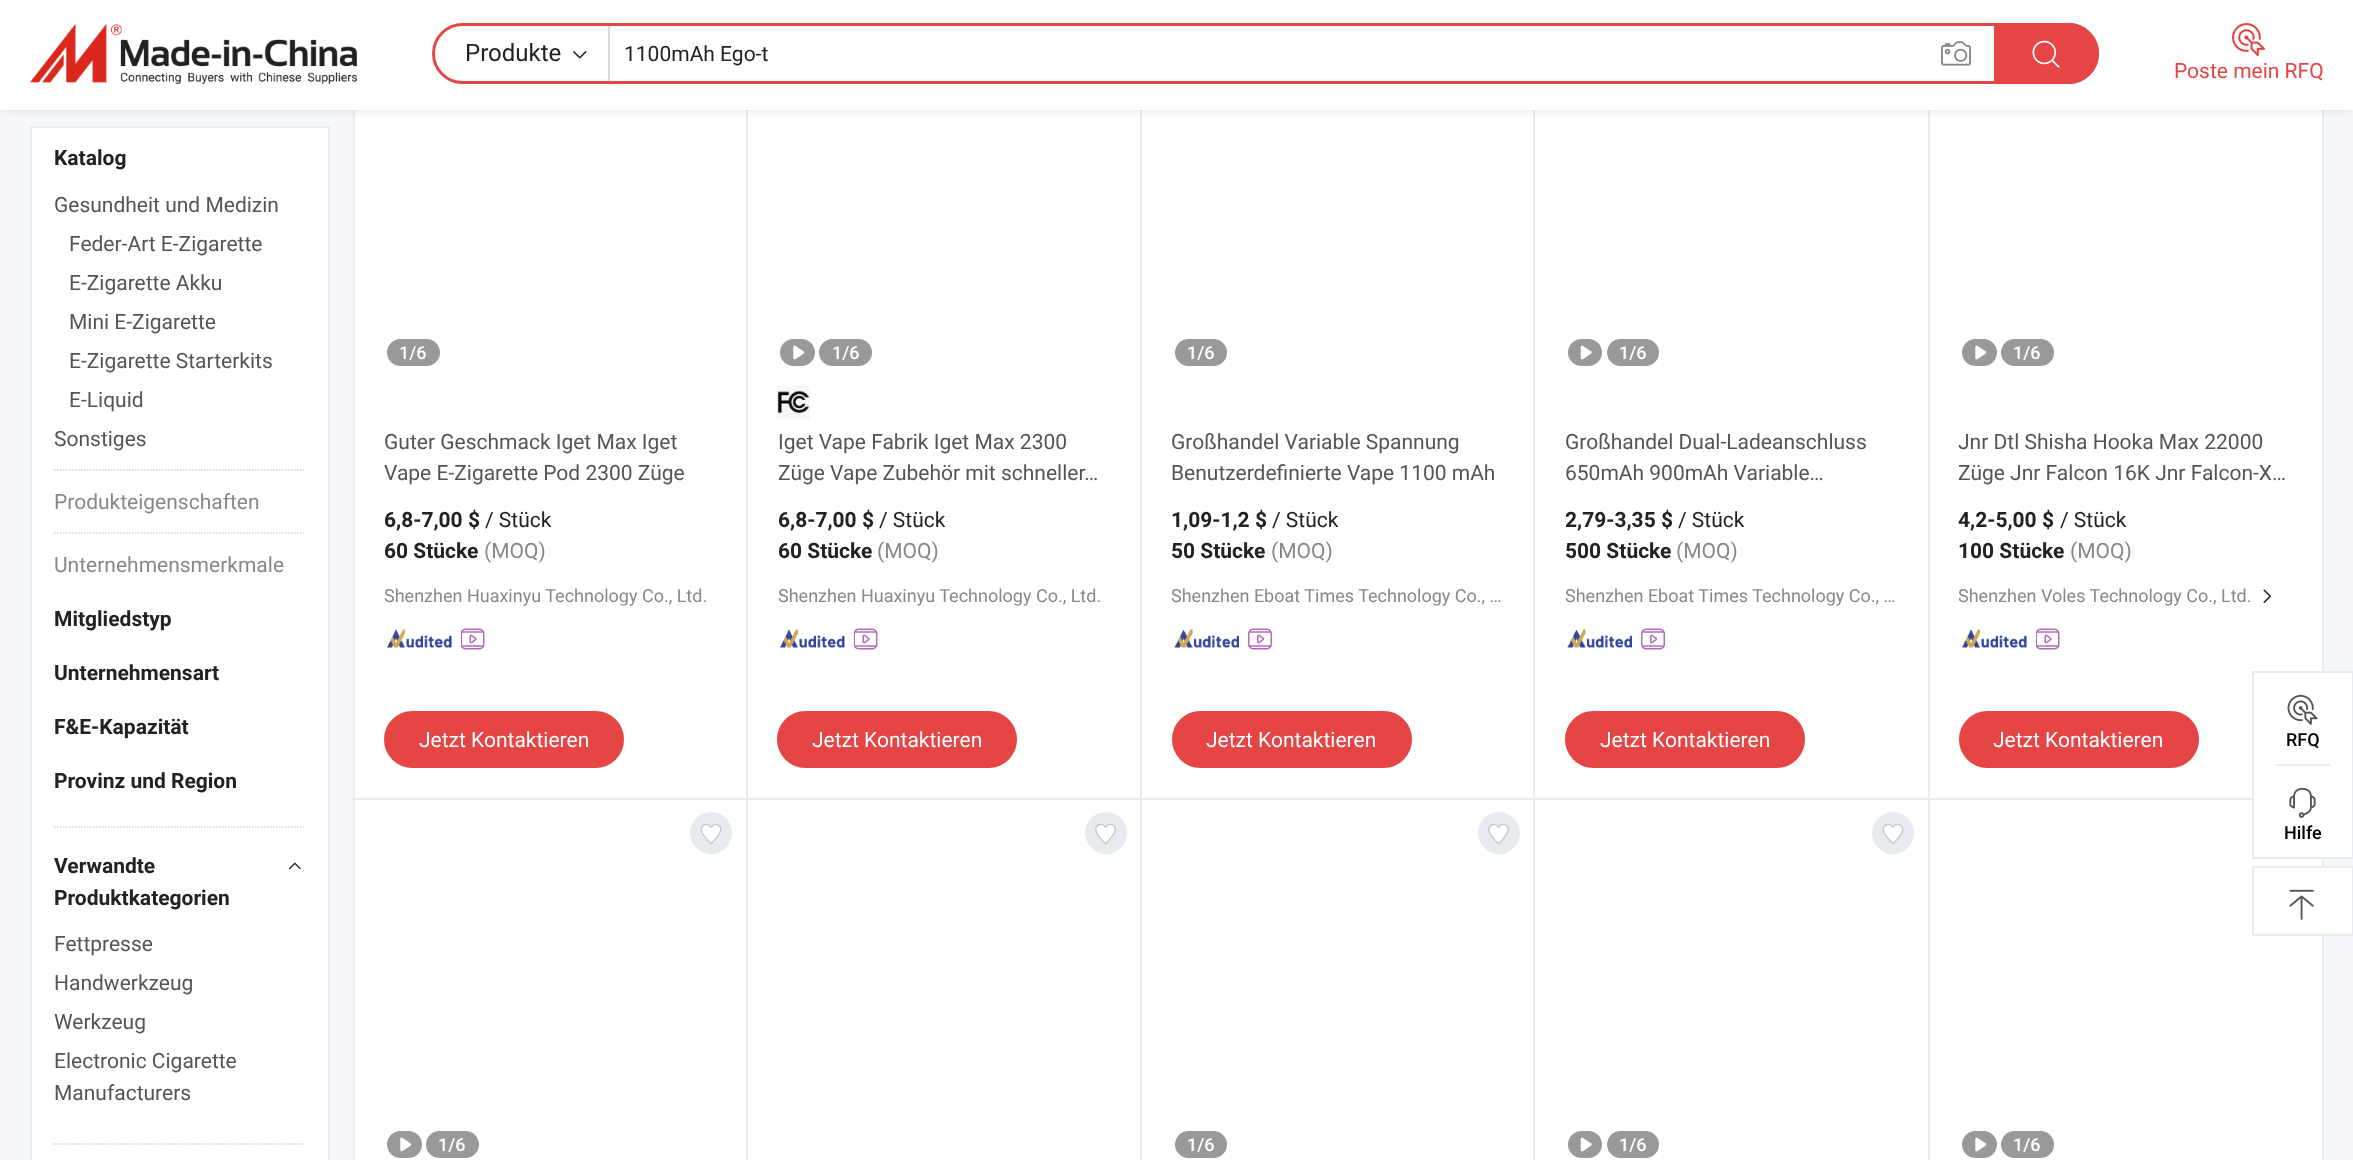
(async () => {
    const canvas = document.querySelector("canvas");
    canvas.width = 2353;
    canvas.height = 1160;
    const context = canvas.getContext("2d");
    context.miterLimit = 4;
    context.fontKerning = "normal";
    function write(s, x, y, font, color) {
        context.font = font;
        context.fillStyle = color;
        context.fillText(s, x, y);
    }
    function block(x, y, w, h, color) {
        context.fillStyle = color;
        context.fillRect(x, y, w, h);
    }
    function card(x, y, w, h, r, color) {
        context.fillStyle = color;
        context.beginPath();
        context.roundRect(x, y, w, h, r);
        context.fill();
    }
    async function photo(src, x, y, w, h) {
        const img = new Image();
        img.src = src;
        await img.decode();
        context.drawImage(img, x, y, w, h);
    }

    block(0, 0, 2353, 1160, "rgb(245, 247, 250)");
    block(355, 110, 1967, 1050, "rgb(255, 255, 255)");
    block(2322, 110, 2, 1050, "rgb(230, 236, 242)");
    block(353, 110, 2, 1050, "rgb(230, 236, 242)");
    context.beginPath();
    context.moveTo(748, 800);
    context.lineTo(352, 800);
    context.lineTo(354, 798);
    context.lineTo(747, 798);
    context.closePath();
    context.fill();
    context.beginPath();
    context.moveTo(1143, 800);
    context.lineTo(746, 800);
    context.lineTo(747, 798);
    context.lineTo(1142, 798);
    context.closePath();
    context.fill();
    block(746, 110, 2, 690, "rgb(230, 236, 242)");
    context.beginPath();
    context.moveTo(1536, 800);
    context.lineTo(1140, 800);
    context.lineTo(1142, 798);
    context.lineTo(1534, 798);
    context.closePath();
    context.fill();
    block(1140, 110, 2, 1050, "rgb(230, 236, 242)");
    context.beginPath();
    context.moveTo(1930, 800);
    context.lineTo(1533, 800);
    context.lineTo(1534, 798);
    context.lineTo(1929, 798);
    context.closePath();
    context.fill();
    block(1533, 110, 2, 1050, "rgb(230, 236, 242)");
    context.beginPath();
    context.moveTo(2324, 800);
    context.lineTo(1928, 800);
    context.lineTo(1929, 798);
    context.lineTo(2322, 798);
    context.closePath();
    context.fill();
    block(1928, 110, 2, 1050, "rgb(230, 236, 242)");
    context.fillStyle = "rgba(0, 0, 0, 0.12)";
    context.filter = "blur(4px)";
    context.beginPath();
    context.rect(5, 9, 2344, 101);
    context.fill();
    context.filter = "none";
    block(0, 0, 2353, 110, "rgb(255, 255, 255)");
    await photo("media/1.png", 30, 24, 327, 60);
    context.beginPath();
    context.roundRect(433.5, 24.5, 1664, 58, 29);
    context.strokeStyle = "rgb(230, 69, 69)";
    context.lineWidth = 3;
    context.stroke();
    block(608, 26, 2, 55, "rgb(218, 218, 218)");
    write("Produkte", 465, 61, "24px Roboto", "rgb(34, 34, 34)");
    await photo("media/2.png", 573, 51, 14, 8);
    write("1100mAh Ego-t", 624, 61, "21px Roboto", "rgb(34, 34, 34)");
    await photo("media/3.png", 1941, 41, 30, 25);
    context.fillStyle = "rgb(230, 69, 69)";
    context.beginPath();
    context.roundRect(1994, 23, 105, 61, [0, 30.5, 30.5, 0]);
    context.fill();
    await photo("media/4.png", 2032, 40, 28, 28);
    await photo("media/5.png", 2232, 23, 33, 34);
    write("Poste mein RFQ", 2174, 78, "21px Roboto", "rgb(230, 69, 69)");
    context.fillStyle = "rgb(255, 255, 255)";
    context.beginPath();
    context.rect(31, 127, 298, 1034);
    context.fill();
    context.strokeStyle = "rgb(230, 236, 242)";
    context.lineWidth = 2;
    context.stroke();
    write("Katalog", 54, 165, "bold 21px Roboto", "rgb(34, 34, 34)");
    write("Gesundheit und Medizin", 54, 212, "21px Roboto", "rgb(85, 85, 85)");
    write("Feder-Art E-Zigarette", 69, 251, "21px Roboto", "rgb(85, 85, 85)");
    write("E-Zigarette Akku", 69, 290, "21px Roboto", "rgb(85, 85, 85)");
    write("Mini E-Zigarette", 69, 329, "21px Roboto", "rgb(85, 85, 85)");
    write("E-Zigarette Starterkits", 69, 368, "21px Roboto", "rgb(85, 85, 85)");
    write("E-Liquid", 69, 407, "21px Roboto", "rgb(85, 85, 85)");
    write("Sonstiges", 54, 446, "21px Roboto", "rgb(85, 85, 85)");
    context.beginPath();
    context.moveTo(54, 470);
    context.lineTo(306, 470);
    context.strokeStyle = "rgb(206, 211, 217)";
    context.lineWidth = 1.5;
    context.setLineDash([1.5, 1.5]);
    context.stroke();
    write("Produkteigenschaften", 54, 509, "21px Roboto", "rgb(136, 136, 136)");
    context.beginPath();
    context.moveTo(54, 533);
    context.lineTo(306, 533);
    context.stroke();
    write("Unternehmensmerkmale", 54, 572, "21px Roboto", "rgb(136, 136, 136)");
    write("Mitgliedstyp", 54, 626, "bold 21px Roboto", "rgb(34, 34, 34)");
    write("Unternehmensart", 54, 680, "bold 21px Roboto", "rgb(34, 34, 34)");
    write("F&E-Kapazität", 54, 734, "bold 21px Roboto", "rgb(34, 34, 34)");
    write("Provinz und Region", 54, 788, "bold 21px Roboto", "rgb(34, 34, 34)");
    context.beginPath();
    context.moveTo(54, 827);
    context.lineTo(306, 827);
    context.stroke();
    write("Verwandte", 54, 873, "bold 21px Roboto", "rgb(34, 34, 34)");
    write("Produktkategorien", 54, 905, "bold 21px Roboto", "rgb(34, 34, 34)");
    await photo("media/6.png", 289, 862, 12, 8);
    write("Fettpresse", 54, 951, "21px Roboto", "rgb(85, 85, 85)");
    write("Handwerkzeug", 54, 990, "21px Roboto", "rgb(85, 85, 85)");
    write("Werkzeug", 54, 1029, "21px Roboto", "rgb(85, 85, 85)");
    write("Electronic Cigarette", 54, 1068, "21px Roboto", "rgb(85, 85, 85)");
    write("Manufacturers", 54, 1100, "21px Roboto", "rgb(85, 85, 85)");
    context.beginPath();
    context.moveTo(54, 1144);
    context.lineTo(306, 1144);
    context.stroke();
    card(387, 339, 53, 27, 13.5, "rgb(153, 153, 153)");
    write("1/6", 399, 359, "500 18px Roboto", "rgb(255, 255, 255)");
    write("Guter Geschmack Iget Max Iget", 384, 449, "21px Roboto", "rgb(85, 85, 85)");
    write("Vape E-Zigarette Pod 2300 Züge", 384, 480, "21px Roboto", "rgb(85, 85, 85)");
    write("6,8-7,00 $", 384, 527, "bold 21px Roboto", "rgb(34, 34, 34)");
    write("/ Stück", 485, 527, "21px Roboto", "rgb(34, 34, 34)");
    write("60 Stücke", 384, 558, "bold 21px Roboto", "rgb(34, 34, 34)");
    write("(MOQ)", 484, 558, "21px Roboto", "rgb(136, 136, 136)");
    write("Shenzhen Huaxinyu Technology Co., Ltd.", 384, 602, "18px Roboto", "rgb(136, 136, 136)");
    await photo("media/7.png", 387, 629, 65, 19);
    await photo("media/8.png", 461, 628, 24, 22);
    context.fillStyle = "rgb(230, 69, 69)";
    context.beginPath();
    context.roundRect(385, 712, 238, 55, 27.5);
    context.fill();
    context.strokeStyle = "rgb(230, 69, 69)";
    context.lineWidth = 2;
    context.setLineDash([]);
    context.stroke();
    write("Jetzt Kontaktieren", 419, 747, "21px Roboto", "rgb(255, 255, 255)");
    await photo("media/9.png", 780, 339, 35, 27);
    card(819, 339, 53, 27, 13.5, "rgb(153, 153, 153)");
    write("1/6", 832, 359, "500 18px Roboto", "rgb(255, 255, 255)");
    await photo("media/10.png", 777, 390, 33, 23);
    block(777, 386, 33, 33, "rgba(0, 0, 0, 0.03)");
    write("Iget Vape Fabrik Iget Max 2300", 778, 449, "21px Roboto", "rgb(85, 85, 85)");
    write("Züge Vape Zubehör mit schneller…", 778, 480, "21px Roboto", "rgb(85, 85, 85)");
    write("6,8-7,00 $", 778, 527, "bold 21px Roboto", "rgb(34, 34, 34)");
    write("/ Stück", 879, 527, "21px Roboto", "rgb(34, 34, 34)");
    write("60 Stücke", 778, 558, "bold 21px Roboto", "rgb(34, 34, 34)");
    write("(MOQ)", 877, 558, "21px Roboto", "rgb(136, 136, 136)");
    write("Shenzhen Huaxinyu Technology Co., Ltd.", 778, 602, "18px Roboto", "rgb(136, 136, 136)");
    await photo("media/11.png", 780, 629, 65, 19);
    await photo("media/8.png", 854, 628, 24, 22);
    context.fillStyle = "rgb(230, 69, 69)";
    context.beginPath();
    context.roundRect(778, 712, 238, 55, 27.5);
    context.fill();
    context.stroke();
    write("Jetzt Kontaktieren", 812, 747, "21px Roboto", "rgb(255, 255, 255)");
    card(1175, 339, 52, 27, 13.5, "rgb(153, 153, 153)");
    write("1/6", 1187, 359, "500 18px Roboto", "rgb(255, 255, 255)");
    write("Großhandel Variable Spannung", 1171, 449, "21px Roboto", "rgb(85, 85, 85)");
    write("Benutzerdefinierte Vape 1100 mAh", 1171, 480, "21px Roboto", "rgb(85, 85, 85)");
    write("1,09-1,2 $", 1171, 527, "bold 21px Roboto", "rgb(34, 34, 34)");
    write("/ Stück", 1272, 527, "21px Roboto", "rgb(34, 34, 34)");
    write("50 Stücke", 1171, 558, "bold 21px Roboto", "rgb(34, 34, 34)");
    write("(MOQ)", 1271, 558, "21px Roboto", "rgb(136, 136, 136)");
    write("Shenzhen Eboat Times Technology Co., …", 1171, 602, "18px Roboto", "rgb(136, 136, 136)");
    await photo("media/12.png", 1174, 629, 65, 19);
    await photo("media/13.png", 1248, 628, 24, 22);
    context.fillStyle = "rgb(230, 69, 69)";
    context.beginPath();
    context.roundRect(1173, 712, 238, 55, 27.5);
    context.fill();
    context.stroke();
    write("Jetzt Kontaktieren", 1206, 747, "21px Roboto", "rgb(255, 255, 255)");
    await photo("media/14.png", 1568, 339, 34, 27);
    card(1607, 339, 52, 27, 13.5, "rgb(153, 153, 153)");
    write("1/6", 1619, 359, "500 18px Roboto", "rgb(255, 255, 255)");
    write("Großhandel Dual-Ladeanschluss", 1565, 449, "21px Roboto", "rgb(85, 85, 85)");
    write("650mAh 900mAh Variable…", 1565, 480, "21px Roboto", "rgb(85, 85, 85)");
    write("2,79-3,35 $", 1565, 527, "bold 21px Roboto", "rgb(34, 34, 34)");
    write("/ Stück", 1678, 527, "21px Roboto", "rgb(34, 34, 34)");
    write("500 Stücke", 1565, 558, "bold 21px Roboto", "rgb(34, 34, 34)");
    write("(MOQ)", 1676, 558, "21px Roboto", "rgb(136, 136, 136)");
    write("Shenzhen Eboat Times Technology Co., …", 1565, 602, "18px Roboto", "rgb(136, 136, 136)");
    await photo("media/15.png", 1567, 629, 65, 19);
    await photo("media/13.png", 1641, 628, 24, 22);
    context.fillStyle = "rgb(230, 69, 69)";
    context.beginPath();
    context.roundRect(1566, 712, 238, 55, 27.5);
    context.fill();
    context.stroke();
    write("Jetzt Kontaktieren", 1600, 747, "21px Roboto", "rgb(255, 255, 255)");
    await photo("media/9.png", 1962, 339, 35, 27);
    card(2001, 339, 53, 27, 13.5, "rgb(153, 153, 153)");
    write("1/6", 2013, 359, "500 18px Roboto", "rgb(255, 255, 255)");
    write("Jnr Dtl Shisha Hooka Max 22000", 1958, 449, "21px Roboto", "rgb(85, 85, 85)");
    write("Züge Jnr Falcon 16K Jnr Falcon-X…", 1958, 480, "21px Roboto", "rgb(85, 85, 85)");
    write("4,2-5,00 $", 1958, 527, "bold 21px Roboto", "rgb(34, 34, 34)");
    write("/ Stück", 2060, 527, "21px Roboto", "rgb(34, 34, 34)");
    write("100 Stücke", 1958, 558, "bold 21px Roboto", "rgb(34, 34, 34)");
    write("(MOQ)", 2070, 558, "21px Roboto", "rgb(136, 136, 136)");
    write("Shenzhen Voles Technology Co., Ltd.", 1958, 602, "18px Roboto", "rgb(136, 136, 136)");
    await photo("media/16.png", 2263, 589, 8, 14);
    await photo("media/7.png", 1962, 629, 65, 19);
    await photo("media/8.png", 2036, 628, 24, 22);
    context.fillStyle = "rgb(230, 69, 69)";
    context.beginPath();
    context.roundRect(1960, 712, 238, 55, 27.5);
    context.fill();
    context.stroke();
    write("Jetzt Kontaktieren", 1993, 747, "21px Roboto", "rgb(255, 255, 255)");
    context.fillStyle = "rgb(230, 236, 242)";
    context.beginPath();
    context.moveTo(352, 798);
    context.lineTo(748, 798);
    context.lineTo(747, 800);
    context.lineTo(354, 800);
    context.closePath();
    context.fill();
    context.fillStyle = "rgb(231, 235, 240)";
    context.beginPath();
    context.arc(711, 833, 21, 0, Math.PI * 2);
    context.fill();
    await photo("media/17.png", 700, 823, 22, 22);
    await photo("media/18.png", 700, 823, 22, 22);
    await photo("media/9.png", 387, 1131, 35, 27);
    card(426, 1131, 53, 27, 13.5, "rgb(153, 153, 153)");
    write("1/6", 438, 1151, "500 18px Roboto", "rgb(255, 255, 255)");
    block(746, 798, 2, 362, "rgb(230, 236, 242)");
    context.fillStyle = "rgb(231, 235, 240)";
    context.beginPath();
    context.arc(1106, 833, 21, 0, Math.PI * 2);
    context.fill();
    await photo("media/19.png", 1095, 823, 21, 22);
    await photo("media/20.png", 1095, 823, 21, 22);
    context.beginPath();
    context.arc(1499, 833, 21, 0, Math.PI * 2);
    context.fill();
    await photo("media/19.png", 1488, 823, 21, 22);
    await photo("media/20.png", 1488, 823, 21, 22);
    card(1175, 1131, 52, 27, 13.5, "rgb(153, 153, 153)");
    write("1/6", 1187, 1151, "500 18px Roboto", "rgb(255, 255, 255)");
    context.fillStyle = "rgb(231, 235, 240)";
    context.beginPath();
    context.arc(1893, 833, 21, 0, Math.PI * 2);
    context.fill();
    await photo("media/17.png", 1882, 823, 22, 22);
    await photo("media/18.png", 1882, 823, 22, 22);
    await photo("media/14.png", 1568, 1131, 34, 27);
    card(1607, 1131, 52, 27, 13.5, "rgb(153, 153, 153)");
    write("1/6", 1619, 1151, "500 18px Roboto", "rgb(255, 255, 255)");
    await photo("media/9.png", 1962, 1131, 35, 27);
    card(2001, 1131, 53, 27, 13.5, "rgb(153, 153, 153)");
    write("1/6", 2013, 1151, "500 18px Roboto", "rgb(255, 255, 255)");
    block(2322, 673, 30, 91, "rgb(255, 255, 255)");
    block(2252, 671, 101, 2, "rgb(230, 236, 242)");
    block(2352, 671, 1, 187, "rgb(230, 236, 242)");
    block(2252, 671, 2, 93, "rgb(230, 236, 242)");
    await photo("media/21.png", 2287, 694, 31, 31);
    write("RFQ", 2286, 746, "500 18px Roboto", "rgb(0, 0, 0)");
    block(2254, 764, 98, 93, "rgb(255, 255, 255)");
    block(2252, 857, 101, 2, "rgb(230, 236, 242)");
    block(2252, 764, 2, 94, "rgb(230, 236, 242)");
    block(2276, 764, 54, 2, "rgb(230, 236, 242)");
    await photo("media/22.png", 2289, 787, 27, 31);
    write("Hilfe", 2284, 839, "500 18px Roboto", "rgb(0, 0, 0)");
    block(2322, 868, 30, 66, "rgb(255, 255, 255)");
    context.strokeStyle = "rgb(230, 236, 242)";
    context.strokeRect(2253, 867, 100, 68);
    await photo("media/23.png", 2289, 889, 25, 31);
})();
